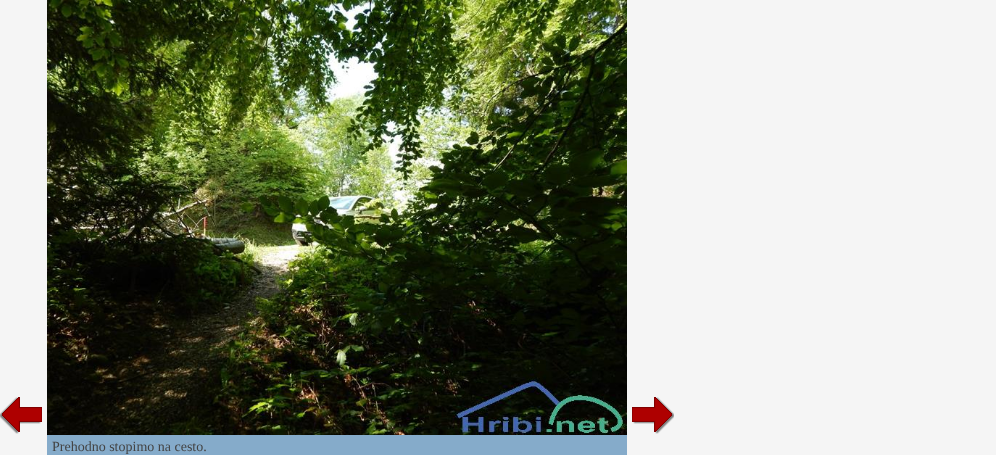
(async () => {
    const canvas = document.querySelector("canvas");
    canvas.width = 996;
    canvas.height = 455;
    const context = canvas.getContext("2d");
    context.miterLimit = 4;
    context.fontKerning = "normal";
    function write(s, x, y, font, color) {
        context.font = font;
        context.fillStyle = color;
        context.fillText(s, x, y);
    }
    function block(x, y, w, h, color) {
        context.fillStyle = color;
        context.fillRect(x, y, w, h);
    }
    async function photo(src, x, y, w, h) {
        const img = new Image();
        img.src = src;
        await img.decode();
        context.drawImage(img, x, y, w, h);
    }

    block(0, 0, 996, 455, "rgb(245, 245, 245)");
    await photo("media/1.png", 0, 397, 42, 37);
    await photo("media/2.png", 632, 397, 42, 37);
    block(47, 435, 580, 20, "rgb(133, 171, 202)");
    await photo("media/3.png", 47, 0, 580, 435);
    write("Prehodno stopimo na cesto.", 52, 451, "14px Liberation Serif", "rgb(68, 68, 68)");
})();
